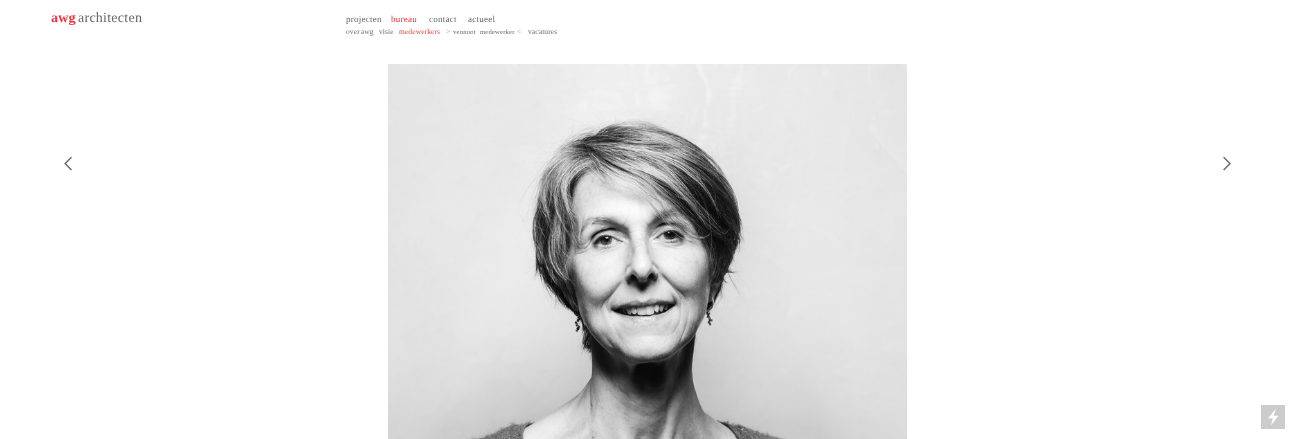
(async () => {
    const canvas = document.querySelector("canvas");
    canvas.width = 1295;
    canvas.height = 439;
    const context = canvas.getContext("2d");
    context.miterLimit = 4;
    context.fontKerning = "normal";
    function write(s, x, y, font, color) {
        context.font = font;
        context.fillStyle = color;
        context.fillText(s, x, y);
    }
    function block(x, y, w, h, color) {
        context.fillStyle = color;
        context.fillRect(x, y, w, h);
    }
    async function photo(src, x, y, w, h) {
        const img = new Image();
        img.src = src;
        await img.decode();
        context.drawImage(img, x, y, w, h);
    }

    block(0, 0, 1295, 439, "rgb(255, 255, 255)");
    context.letterSpacing = "0.25px";
    write("awg", 51, 22, "bold 14px Liberation Serif", "rgb(239, 51, 64)");
    write("architecten", 78, 22, "14px Liberation Serif", "rgb(102, 102, 102)");
    write("projecten", 346, 22, "9px Liberation Serif", "rgb(102, 102, 102)");
    write("bureau", 391, 22, "9px Liberation Serif", "rgb(239, 51, 64)");
    write("contact", 429, 22, "9px Liberation Serif", "rgb(102, 102, 102)");
    write("actueel", 468, 22, "9px Liberation Serif", "rgb(102, 102, 102)");
    context.letterSpacing = "0.1px";
    context.wordSpacing = "-1px";
    write("over awg", 346, 34, "7.5px Liberation Serif", "rgb(102, 102, 102)");
    context.wordSpacing = "0px";
    write("visie", 379, 34, "7.5px Liberation Serif", "rgb(102, 102, 102)");
    write("medewerkers", 399, 34, "7.5px Liberation Serif", "rgb(237, 56, 53)");
    write(">", 446, 34, "7.5px Liberation Serif", "rgb(102, 102, 102)");
    context.letterSpacing = "0.25px";
    write("vennoot", 453, 34, "6.5px Liberation Serif", "rgb(102, 102, 102)");
    write("medewerker", 480, 34, "6.5px Liberation Serif", "rgb(102, 102, 102)");
    context.letterSpacing = "0.1px";
    write("<", 517, 34, "7.5px Liberation Serif", "rgb(102, 102, 102)");
    write("vacatures", 528, 34, "7.5px Liberation Serif", "rgb(102, 102, 102)");
    await photo("media/1.png", 64, 156, 8, 15);
    await photo("media/2.png", 1223, 156, 8, 15);
    await photo("media/3.png", 388, 64, 519, 375);
    block(1261, 405, 24, 24, "rgb(204, 204, 204)");
    await photo("media/4.png", 1268, 409, 11, 16);
})();
